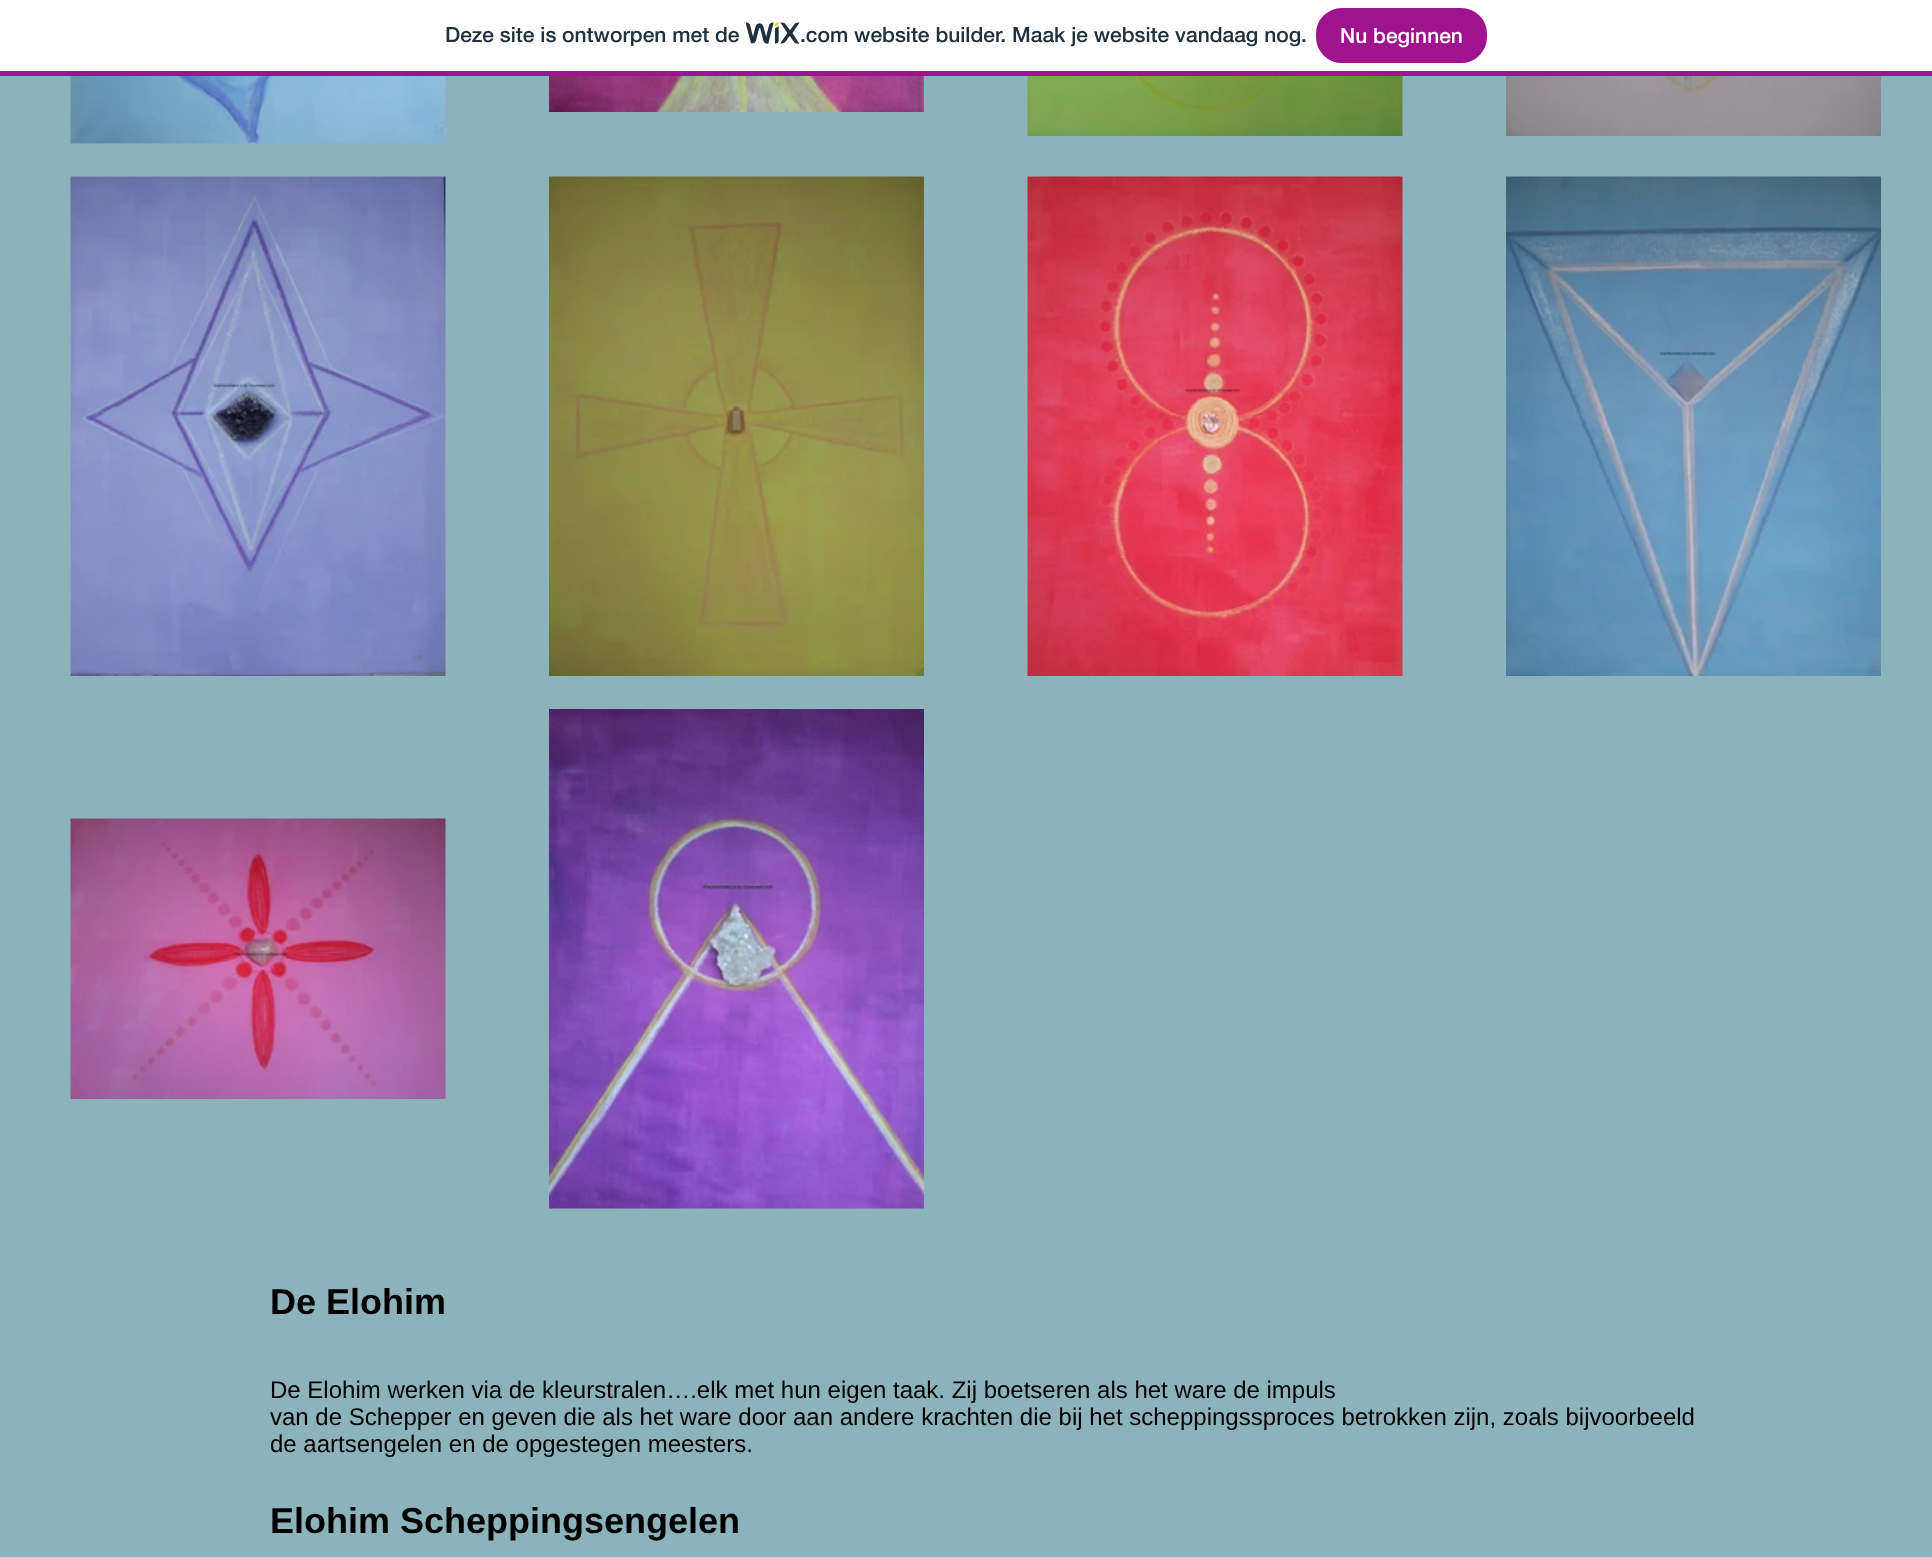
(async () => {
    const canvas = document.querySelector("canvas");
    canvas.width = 1932;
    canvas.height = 1557;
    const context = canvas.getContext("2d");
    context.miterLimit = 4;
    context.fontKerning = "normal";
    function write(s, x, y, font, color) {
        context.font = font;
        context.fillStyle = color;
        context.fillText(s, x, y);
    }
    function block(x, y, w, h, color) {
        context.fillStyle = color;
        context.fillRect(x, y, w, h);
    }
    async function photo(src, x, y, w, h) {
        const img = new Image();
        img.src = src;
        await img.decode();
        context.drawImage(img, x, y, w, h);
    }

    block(0, 0, 1932, 1557, "rgb(140, 179, 187)");
    block(0, 0, 1932, 71, "rgb(255, 255, 255)");
    block(0, 71, 1932, 5, "rgb(160, 19, 142)");
    write("Deze site is ontworpen met de", 445, 42, "500 21px 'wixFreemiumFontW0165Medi'", "rgb(32, 48, 60)");
    await photo("media/1.png", 746, 22, 54, 22);
    write(".com website builder. Maak je website vandaag nog.", 800, 42, "500 21px 'wixFreemiumFontW0165Medi'", "rgb(32, 48, 60)");
    context.fillStyle = "rgb(160, 19, 142)";
    context.beginPath();
    context.roundRect(1317, 9, 169, 53, 25);
    context.fill();
    context.strokeStyle = "rgb(160, 19, 142)";
    context.lineWidth = 2;
    context.stroke();
    write("Nu beginnen", 1340, 43, "500 21px 'wixFreemiumFontW0165Medi'", "rgb(255, 255, 255)");
    await photo("media/2.png", 70, 76, 376, 68);
    await photo("media/3.png", 549, 76, 375, 36);
    await photo("media/4.png", 1027, 76, 376, 60);
    await photo("media/5.png", 1506, 76, 375, 60);
    await photo("media/6.png", 70, 176, 376, 500);
    await photo("media/7.png", 549, 176, 375, 500);
    await photo("media/8.png", 1027, 176, 376, 500);
    await photo("media/9.png", 1506, 176, 375, 500);
    await photo("media/10.png", 70, 818, 376, 281);
    await photo("media/11.png", 549, 709, 375, 500);
    write("De Elohim", 270, 1314, "bold 36px Liberation Sans", "rgb(0, 0, 0)");
    write("De Elohim werken via de kleurstralen….elk met hun eigen taak. Zij boetseren als het ware de impuls", 270, 1398, "24px Liberation Sans", "rgb(0, 0, 0)");
    write("van de Schepper en geven die als het ware door aan andere krachten die bij het scheppingssproces betrokken zijn, zoals bijvoorbeeld", 270, 1425, "24px Liberation Sans", "rgb(0, 0, 0)");
    write("de aartsengelen en de opgestegen meesters.", 270, 1452, "24px Liberation Sans", "rgb(0, 0, 0)");
    write("Elohim Scheppingsengelen", 270, 1533, "bold 36px Liberation Sans", "rgb(0, 0, 0)");
})();
